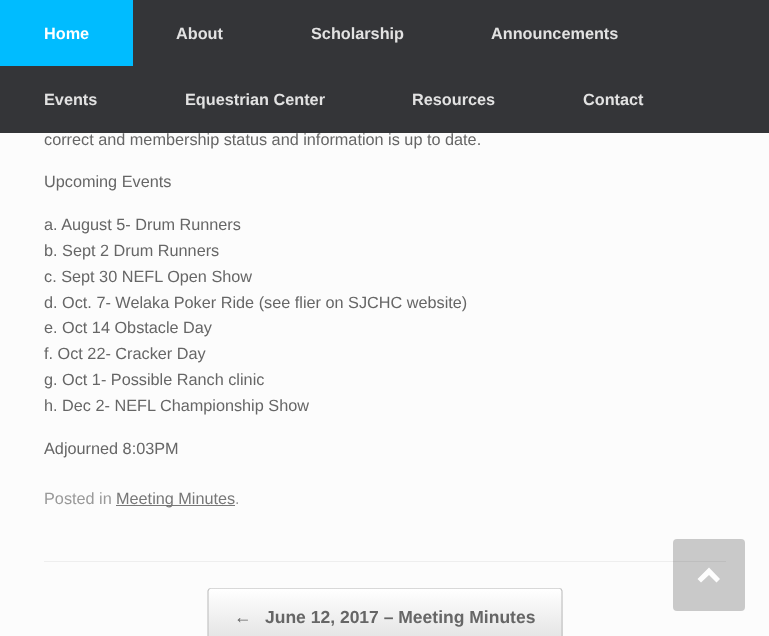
(async () => {
    const canvas = document.querySelector("canvas");
    canvas.width = 769;
    canvas.height = 636;
    const context = canvas.getContext("2d");
    context.miterLimit = 4;
    context.fontKerning = "normal";
    function write(s, x, y, font, color) {
        context.font = font;
        context.fillStyle = color;
        context.fillText(s, x, y);
    }
    function block(x, y, w, h, color) {
        context.fillStyle = color;
        context.fillRect(x, y, w, h);
    }
    function card(x, y, w, h, r, color) {
        context.fillStyle = color;
        context.beginPath();
        context.roundRect(x, y, w, h, r);
        context.fill();
    }
    let gradient;

    block(0, 0, 769, 636, "rgb(252, 252, 252)");
    block(0, 0, 769, 133, "rgb(52, 53, 56)");
    block(0, 0, 133, 66, "rgb(0, 188, 255)");
    write("Home", 44, 39, "bold 16.25px Liberation Sans", "rgb(255, 255, 255)");
    write("About", 176, 39, "bold 16.25px Liberation Sans", "rgb(226, 226, 226)");
    write("Scholarship", 311, 39, "bold 16.25px Liberation Sans", "rgb(226, 226, 226)");
    write("Announcements", 491, 39, "bold 16.25px Liberation Sans", "rgb(226, 226, 226)");
    write("Events", 44, 105, "bold 16.25px Liberation Sans", "rgb(226, 226, 226)");
    write("Equestrian Center", 185, 105, "bold 16.25px Liberation Sans", "rgb(226, 226, 226)");
    write("Resources", 412, 105, "bold 16.25px Liberation Sans", "rgb(226, 226, 226)");
    write("Contact", 583, 105, "bold 16.25px Liberation Sans", "rgb(226, 226, 226)");
    block(44, 561, 682, 1, "rgb(238, 238, 238)");
    write("correct and membership status and information is up to date.", 44, 145, "16.25px Liberation Sans", "rgb(102, 102, 102)");
    write("Upcoming Events", 44, 187, "16.25px Liberation Sans", "rgb(102, 102, 102)");
    write("a. August 5- Drum Runners", 44, 230, "16.25px Liberation Sans", "rgb(102, 102, 102)");
    write("b. Sept 2 Drum Runners", 44, 256, "16.25px Liberation Sans", "rgb(102, 102, 102)");
    write("c. Sept 30 NEFL Open Show", 44, 282, "16.25px Liberation Sans", "rgb(102, 102, 102)");
    write("d. Oct. 7- Welaka Poker Ride (see flier on SJCHC website)", 44, 308, "16.25px Liberation Sans", "rgb(102, 102, 102)");
    write("e. Oct 14 Obstacle Day", 44, 333, "16.25px Liberation Sans", "rgb(102, 102, 102)");
    write("f. Oct 22- Cracker Day", 44, 359, "16.25px Liberation Sans", "rgb(102, 102, 102)");
    write("g. Oct 1- Possible Ranch clinic", 44, 385, "16.25px Liberation Sans", "rgb(102, 102, 102)");
    write("h. Dec 2- NEFL Championship Show", 44, 411, "16.25px Liberation Sans", "rgb(102, 102, 102)");
    write("Adjourned 8:03PM", 44, 454, "16.25px Liberation Sans", "rgb(102, 102, 102)");
    write("Posted in", 44, 504, "16.25px Liberation Sans", "rgb(153, 153, 153)");
    block(116, 505, 119, 1, "rgb(119, 119, 119)");
    write("Meeting Minutes", 116, 504, "16.25px Liberation Sans", "rgb(119, 119, 119)");
    write(".", 235, 504, "16.25px Liberation Sans", "rgb(153, 153, 153)");
    context.save();
    context.beginPath();
    context.roundRect(208, 588, 355, 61, 4);
    context.clip();
    gradient = context.createLinearGradient(209, 589, 209, 530);
    gradient.addColorStop(0, "rgb(223, 223, 223)");
    gradient.addColorStop(1, "rgb(255, 255, 255)");
    context.fillStyle = gradient;
    context.fillRect(208, 588, 355, 1);
    gradient = context.createLinearGradient(209, 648, 209, 589);
    gradient.addColorStop(0, "rgb(223, 223, 223)");
    gradient.addColorStop(1, "rgb(255, 255, 255)");
    context.fillStyle = gradient;
    context.fillRect(208, 589, 355, 47);
    context.restore();
    context.save();
    context.beginPath();
    context.rect(44, 588, 682, 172);
    context.clip();
    context.beginPath();
    context.moveTo(209, 589);
    context.lineTo(211, 588);
    context.lineTo(559, 588);
    context.lineTo(561, 589);
    context.strokeStyle = "rgb(210, 210, 210)";
    context.lineWidth = 1.2;
    context.stroke();
    context.restore();
    context.beginPath();
    context.moveTo(561, 589);
    context.lineTo(562, 591);
    context.lineTo(562, 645.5);
    context.lineTo(561, 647);
    context.strokeStyle = "rgb(195, 195, 195)";
    context.lineWidth = 1.2;
    context.stroke();
    context.beginPath();
    context.moveTo(209, 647);
    context.lineTo(208, 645.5);
    context.lineTo(208, 591);
    context.lineTo(209, 589);
    context.stroke();
    write("←", 234, 623, "bold 17.5px Liberation Sans", "rgb(102, 102, 102)");
    write("June 12, 2017 – Meeting Minutes", 265, 623, "bold 17.5px Liberation Sans", "rgb(102, 102, 102)");
    card(673, 539, 72, 72, 4, "rgba(0, 0, 0, 0.2)");
    context.fillStyle = "rgb(253, 253, 253)";
    context.beginPath();
    context.moveTo(720, 579);
    context.lineTo(709, 567.5);
    context.lineTo(697.5, 579);
    context.lineTo(701, 582.5);
    context.lineTo(709, 575);
    context.lineTo(716.5, 582.5);
    context.closePath();
    context.fill();
})();
